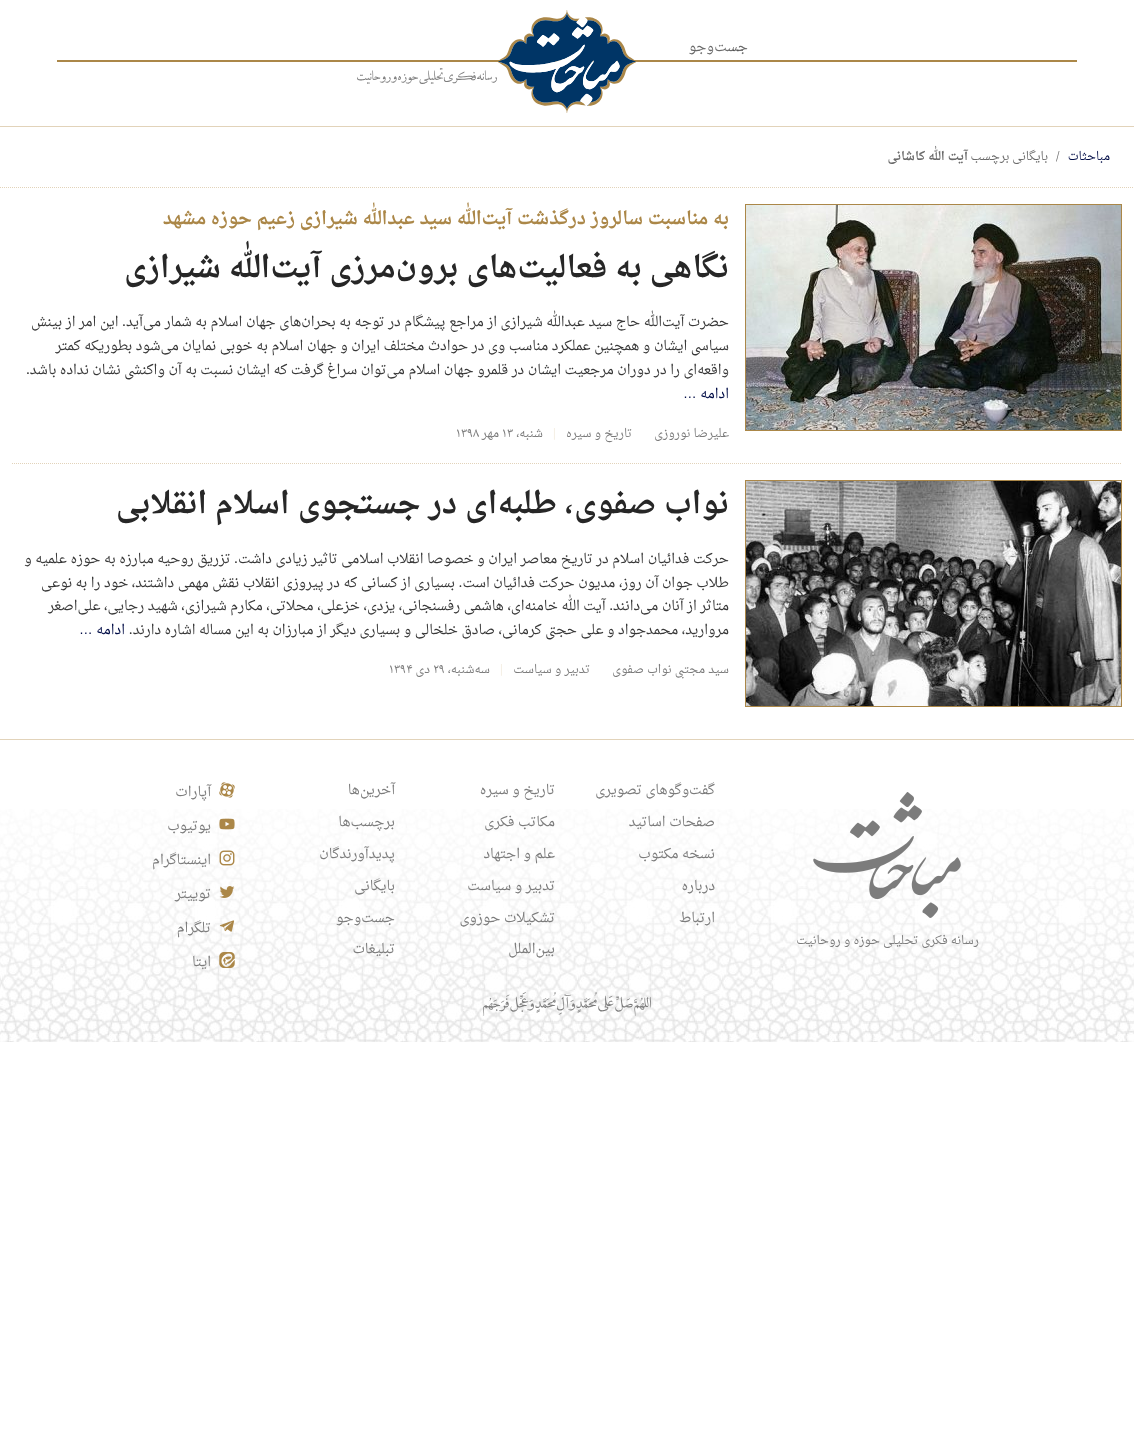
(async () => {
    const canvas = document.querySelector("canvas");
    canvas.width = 1134;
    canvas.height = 1443;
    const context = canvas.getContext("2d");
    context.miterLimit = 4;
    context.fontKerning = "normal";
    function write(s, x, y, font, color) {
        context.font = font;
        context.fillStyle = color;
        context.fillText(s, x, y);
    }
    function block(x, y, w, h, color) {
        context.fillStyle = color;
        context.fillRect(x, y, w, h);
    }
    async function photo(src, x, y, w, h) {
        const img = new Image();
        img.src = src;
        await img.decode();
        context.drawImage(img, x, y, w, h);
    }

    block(0, 0, 1134, 1443, "rgb(255, 255, 255)");
    await photo("media/1.png", 0, 809, 1134, 233);
    block(0, 126, 1134, 1, "rgb(226, 211, 186)");
    context.direction = "rtl";
    write("جست", 748, 51, "13.6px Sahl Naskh", "rgb(106, 106, 106)");
    write("وجو", 714, 51, "13.6px Sahl Naskh", "rgb(106, 106, 106)");
    context.direction = "ltr";
    write("…", 731, 51, "13.6px Liberation Sans", "rgb(84, 84, 84)");
    block(57, 60, 1020, 2, "rgb(171, 135, 72)");
    await photo("media/2.png", 498, 10, 138, 103);
    await photo("media/3.png", 357, 68, 140, 16);
    context.beginPath();
    context.moveTo(0, 187.5);
    context.lineTo(1134, 187.5);
    context.strokeStyle = "rgb(226, 211, 186)";
    context.setLineDash([1, 1]);
    context.stroke();
    context.direction = "rtl";
    write("مباحثات", 1110, 160, "11.9px Sahl Naskh", "rgb(0, 12, 70)");
    context.direction = "ltr";
    write("/", 1056, 160, "11.9px Sahl Naskh", "rgb(106, 106, 106)");
    context.direction = "rtl";
    write("بایگانی برچسب", 1048, 160, "11.9px Sahl Naskh", "rgb(106, 106, 106)");
    write("آیت الله کاشانی", 968, 160, "bold 11.9px Sahl Naskh", "rgb(106, 106, 106)");
    block(745, 204, 377, 227, "rgb(171, 135, 72)");
    await photo("media/4.png", 746, 205, 375, 225);
    write("به مناسبت سالروز درگذشت آیت‌الله سید عبدالله شیرازی زعیم حوزه مشهد", 729, 224, "bold 18px Sahl Naskh", "rgb(171, 135, 72)");
    write("نگاهی به فعالیت‌های برون‌مرزی آیت‌الله شیرازی", 729, 277, "bold 30px Sahl Naskh", "rgb(39, 39, 39)");
    write("حضرت آیت‌الله حاج سید عبدالله شیرازی از مراجع پیشگام در توجه به بحران‌های جهان اسلام به شمار می‌آید. این امر از بینش", 729, 326, "13.6px Sahl Naskh", "rgb(56, 56, 56)");
    write("سیاسی ایشان و همچنین عملکرد مناسب وی در حوادث مختلف ایران و جهان اسلام به خوبی نمایان می‌شود بطوریکه کمتر", 729, 350, "13.6px Sahl Naskh", "rgb(56, 56, 56)");
    write("واقعه‌ای را در دوران مرجعیت ایشان در قلمرو جهان اسلام می‌توان سراغ گرفت که ایشان نسبت به آن واکنشی نشان نداده باشد.", 729, 374, "13.6px Sahl Naskh", "rgb(56, 56, 56)");
    write("ادامه", 729, 398, "13.6px Sahl Naskh", "rgb(0, 12, 70)");
    context.direction = "ltr";
    write("…", 683, 398, "13.6px Liberation Sans", "rgb(0, 12, 70)");
    context.direction = "rtl";
    write("علیرضا نوروزی", 729, 437, "11.9px Sahl Naskh", "rgb(124, 124, 124)");
    write("تاریخ و سیره", 632, 437, "11.9px Sahl Naskh", "rgb(124, 124, 124)");
    context.direction = "ltr";
    write("|", 551, 437, "11.9px Sahl Naskh", "rgb(241, 234, 221)");
    context.direction = "rtl";
    write("شنبه،", 543, 437, "11.9px Sahl Naskh", "rgb(124, 124, 124)");
    context.direction = "ltr";
    write("۱۳", 502, 437, "11.9px Sahl Naskh", "rgb(124, 124, 124)");
    context.direction = "rtl";
    write("مهر", 499, 437, "11.9px Sahl Naskh", "rgb(124, 124, 124)");
    context.direction = "ltr";
    write("۱۳۹۸", 456, 437, "11.9px Sahl Naskh", "rgb(124, 124, 124)");
    context.beginPath();
    context.moveTo(12, 463.5);
    context.lineTo(1122, 463.5);
    context.stroke();
    block(745, 480, 377, 227, "rgb(171, 135, 72)");
    await photo("media/5.png", 746, 481, 375, 225);
    context.direction = "rtl";
    write("نواب صفوی، طلبه‌ای در جستجوی اسلام انقلابی", 729, 513, "bold 30px Sahl Naskh", "rgb(39, 39, 39)");
    write("حرکت فدائیان اسلام در تاریخ معاصر ایران و خصوصا انقلاب اسلامی تاثیر زیادی داشت. تزریق روحیه مبارزه به حوزه علمیه و", 729, 563, "13.6px Sahl Naskh", "rgb(56, 56, 56)");
    write("طلاب جوان آن روز، مدیون حرکت فدائیان است. بسیاری از کسانی که در پیروزی انقلاب نقش مهمی داشتند، خود را به نوعی", 729, 587, "13.6px Sahl Naskh", "rgb(56, 56, 56)");
    write("متاثر از آنان می‌دانند. آیت الله خامنه‌ای، هاشمی رفسنجانی، یزدی، خزعلی، محلاتی، مکارم شیرازی، شهید رجایی، علی‌اصغر", 729, 610, "13.6px Sahl Naskh", "rgb(56, 56, 56)");
    write("مروارید، محمدجواد و علی حجتی کرمانی، صادق خلخالی و بسیاری دیگر از مبارزان به این مساله اشاره دارند.", 729, 634, "13.6px Sahl Naskh", "rgb(56, 56, 56)");
    write("ادامه", 125, 634, "13.6px Sahl Naskh", "rgb(0, 12, 70)");
    context.direction = "ltr";
    write("…", 79, 634, "13.6px Liberation Sans", "rgb(0, 12, 70)");
    context.direction = "rtl";
    write("سید مجتبی نواب صفوی", 729, 673, "11.9px Sahl Naskh", "rgb(124, 124, 124)");
    write("تدبیر و سیاست", 590, 673, "11.9px Sahl Naskh", "rgb(124, 124, 124)");
    context.direction = "ltr";
    write("|", 498, 673, "11.9px Sahl Naskh", "rgb(241, 234, 221)");
    context.direction = "rtl";
    write("سه‌شنبه،", 490, 673, "11.9px Sahl Naskh", "rgb(124, 124, 124)");
    context.direction = "ltr";
    write("۲۹", 433, 673, "11.9px Sahl Naskh", "rgb(124, 124, 124)");
    context.direction = "rtl";
    write("دی", 430, 673, "11.9px Sahl Naskh", "rgb(124, 124, 124)");
    context.direction = "ltr";
    write("۱۳۹۴", 389, 673, "11.9px Sahl Naskh", "rgb(124, 124, 124)");
    block(0, 739, 1134, 1, "rgb(226, 211, 186)");
    await photo("media/6.png", 813, 792, 148, 126);
    context.direction = "rtl";
    write("رسانه فکری تحلیلی حوزه و روحانیت", 979, 944, "11.9px Sahl Naskh", "rgb(124, 124, 124)");
    write("گفت‌وگوهای تصویری", 715, 794, "13.6px Sahl Naskh", "rgb(124, 124, 124)");
    write("صفحات اساتید", 715, 826, "13.6px Sahl Naskh", "rgb(124, 124, 124)");
    write("نسخه مکتوب", 715, 858, "13.6px Sahl Naskh", "rgb(124, 124, 124)");
    write("درباره", 715, 890, "13.6px Sahl Naskh", "rgb(124, 124, 124)");
    write("ارتباط", 715, 922, "13.6px Sahl Naskh", "rgb(124, 124, 124)");
    write("تاریخ و سیره", 555, 794, "13.6px Sahl Naskh", "rgb(124, 124, 124)");
    write("مکاتب فکری", 555, 826, "13.6px Sahl Naskh", "rgb(124, 124, 124)");
    write("علم و اجتهاد", 555, 858, "13.6px Sahl Naskh", "rgb(124, 124, 124)");
    write("تدبیر و سیاست", 555, 890, "13.6px Sahl Naskh", "rgb(124, 124, 124)");
    write("تشکیلات حوزوی", 555, 922, "13.6px Sahl Naskh", "rgb(124, 124, 124)");
    write("بین‌الملل", 555, 953, "13.6px Sahl Naskh", "rgb(124, 124, 124)");
    write("آخرین‌ها", 395, 794, "13.6px Sahl Naskh", "rgb(124, 124, 124)");
    write("برچسب‌ها", 395, 826, "13.6px Sahl Naskh", "rgb(124, 124, 124)");
    write("پدیدآورندگان", 395, 858, "13.6px Sahl Naskh", "rgb(124, 124, 124)");
    write("بایگانی", 395, 890, "13.6px Sahl Naskh", "rgb(124, 124, 124)");
    write("جست‌وجو", 395, 922, "13.6px Sahl Naskh", "rgb(124, 124, 124)");
    write("تبلیغات", 395, 953, "13.6px Sahl Naskh", "rgb(124, 124, 124)");
    await photo("media/7.png", 219, 782, 16, 16);
    write("آپارات", 211, 796, "13.6px Sahl Naskh", "rgb(124, 124, 124)");
    await photo("media/8.png", 219, 818, 16, 12);
    write("یوتیوب", 211, 830, "13.6px Sahl Naskh", "rgb(124, 124, 124)");
    await photo("media/9.png", 219, 850, 16, 16);
    write("اینستاگرام", 211, 864, "13.6px Sahl Naskh", "rgb(124, 124, 124)");
    await photo("media/10.png", 219, 886, 16, 12);
    write("توییتر", 211, 898, "13.6px Sahl Naskh", "rgb(124, 124, 124)");
    await photo("media/11.png", 219, 920, 16, 12);
    write("تلگرام", 211, 932, "13.6px Sahl Naskh", "rgb(124, 124, 124)");
    await photo("media/12.png", 219, 952, 16, 16);
    write("ایتا", 211, 966, "13.6px Sahl Naskh", "rgb(124, 124, 124)");
    await photo("media/13.png", 483, 992, 168, 24);
})();
